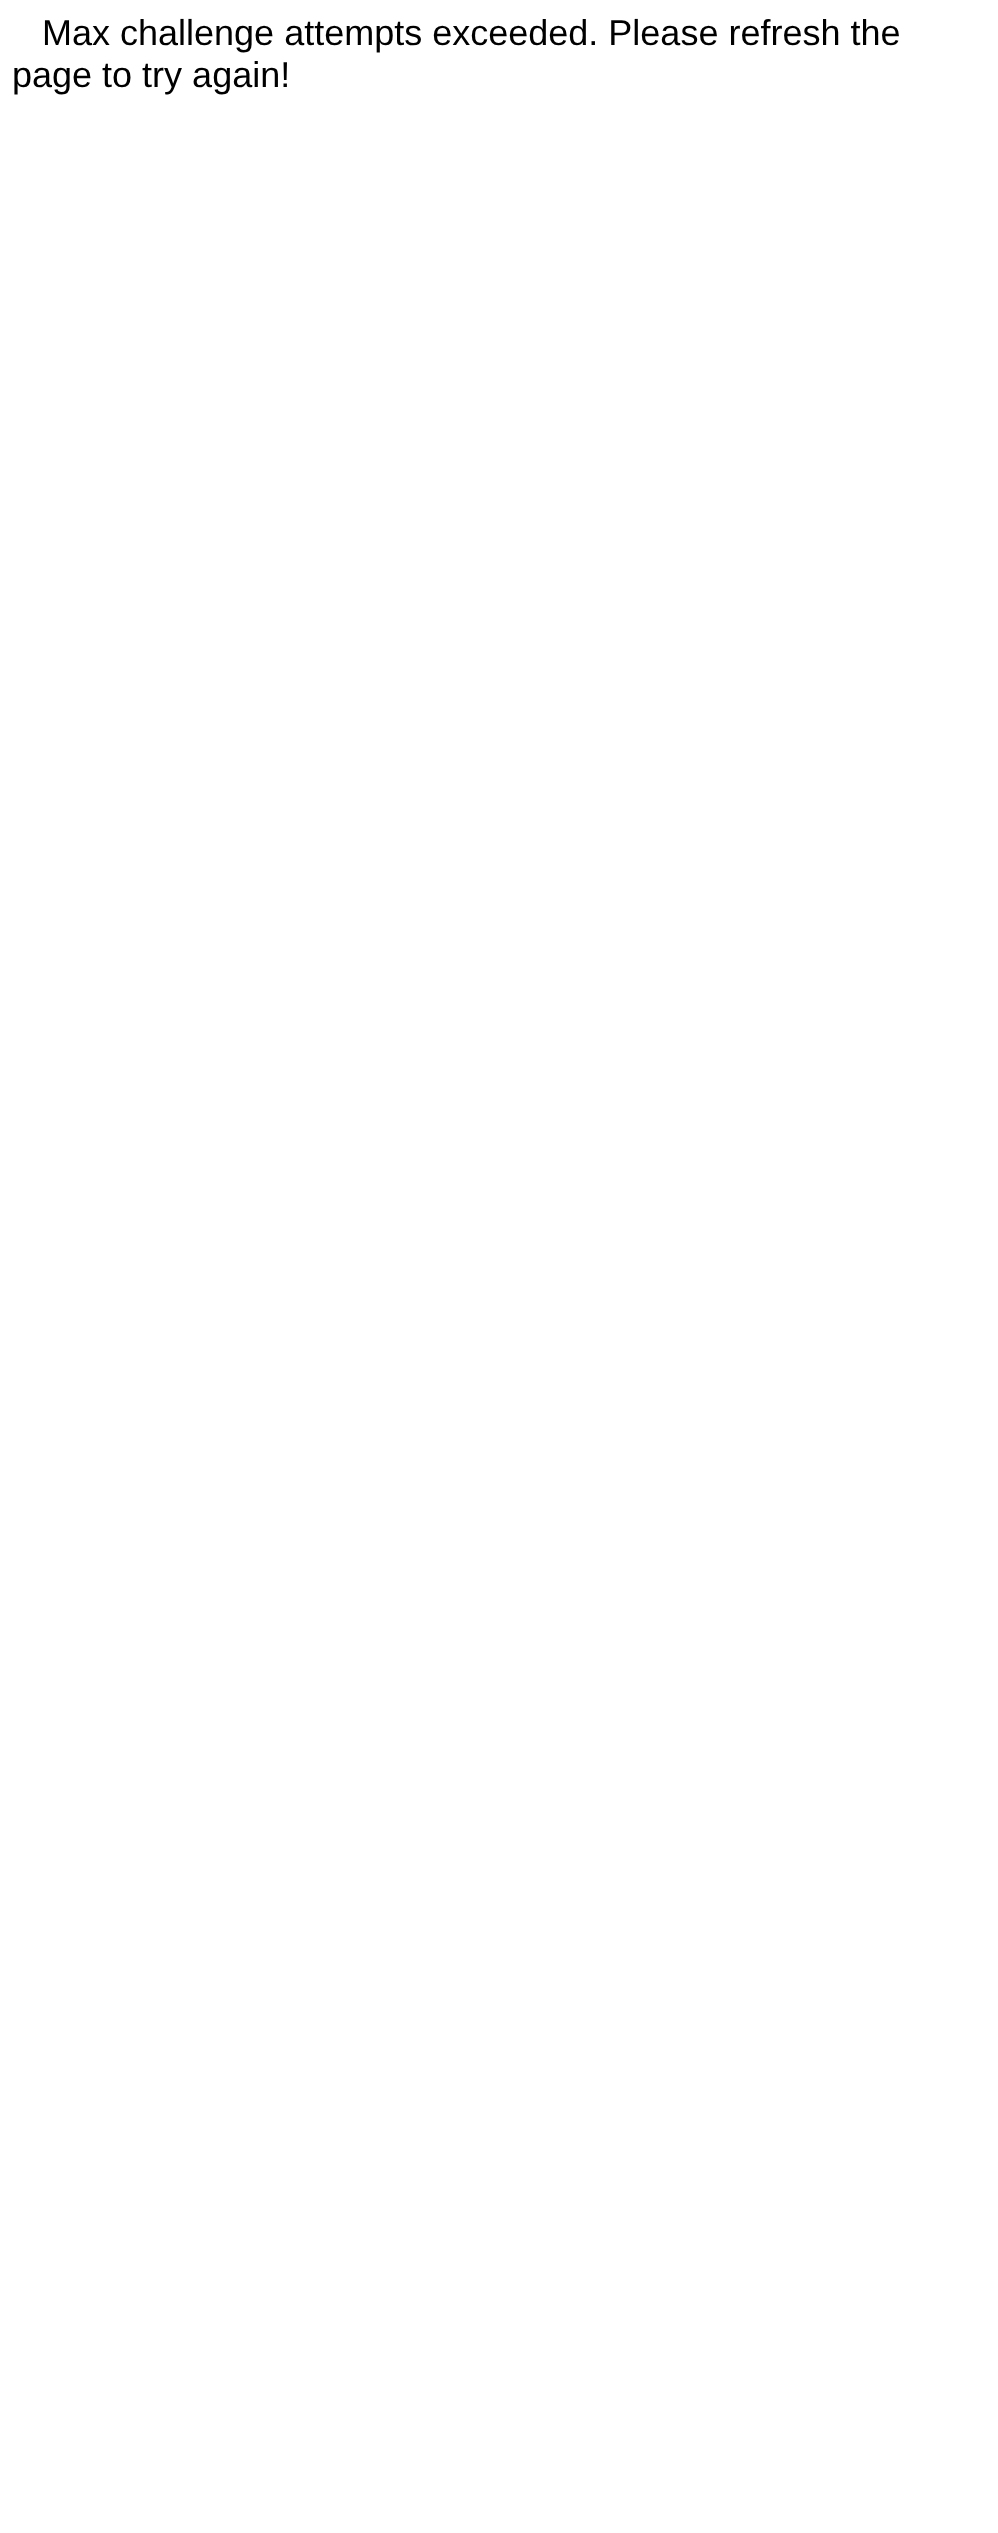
(async () => {
    const canvas = document.querySelector("canvas");
    canvas.width = 998;
    canvas.height = 2533;
    const context = canvas.getContext("2d");
    context.miterLimit = 4;
    context.fontKerning = "normal";
    function write(s, x, y, font, color) {
        context.font = font;
        context.fillStyle = color;
        context.fillText(s, x, y);
    }
    function block(x, y, w, h, color) {
        context.fillStyle = color;
        context.fillRect(x, y, w, h);
    }

    block(0, 0, 998, 2533, "rgb(255, 255, 255)");
    write("Max challenge attempts exceeded. Please refresh the", 42, 45, "36px Liberation Sans", "rgb(0, 0, 0)");
    write("page to try again!", 12, 87, "36px Liberation Sans", "rgb(0, 0, 0)");
})();
